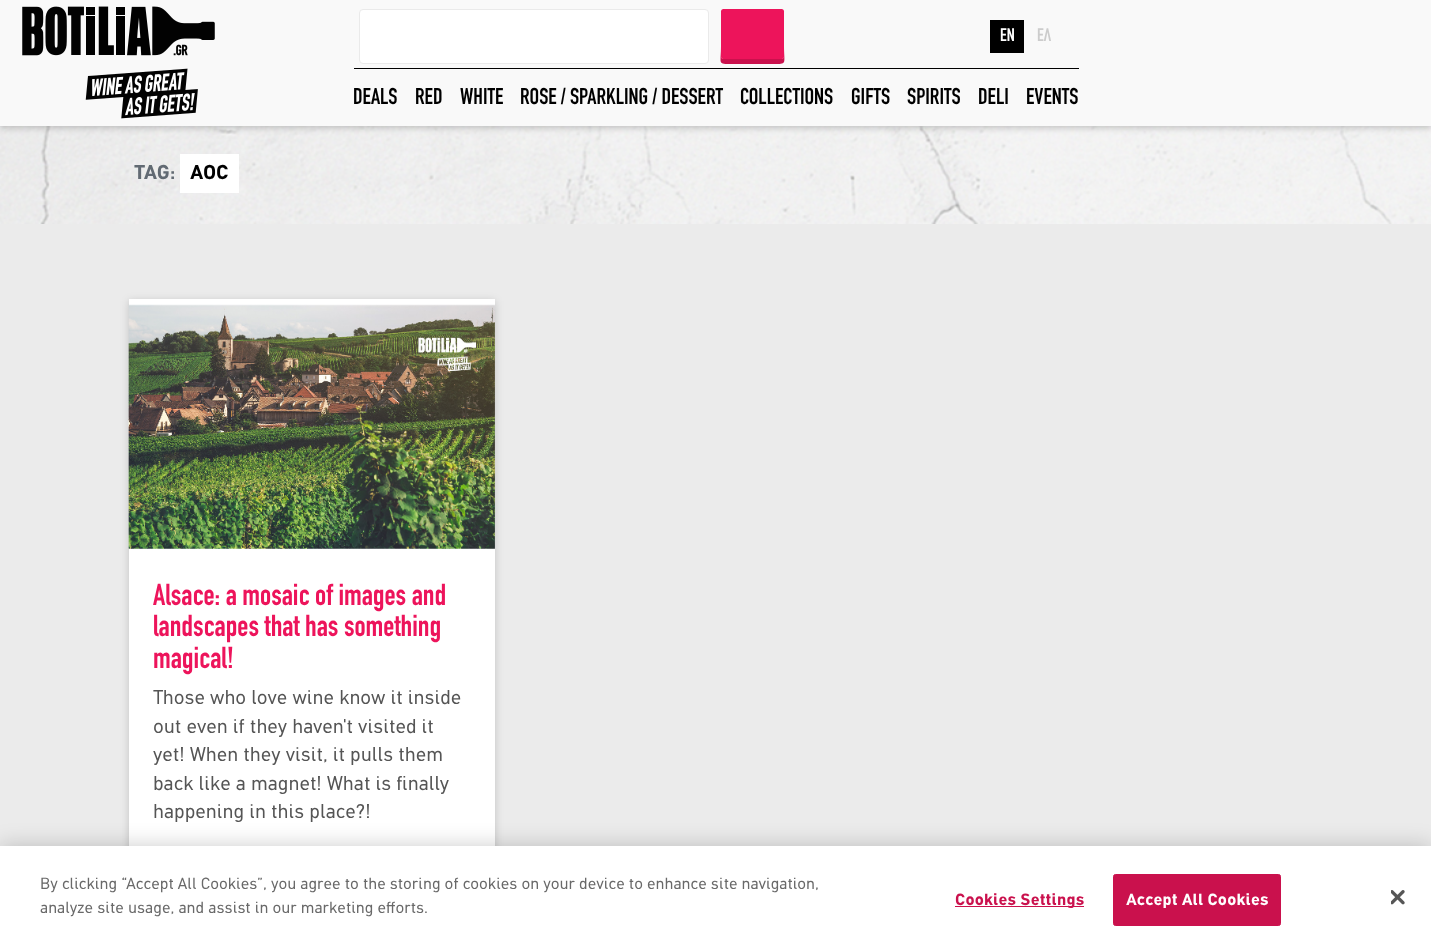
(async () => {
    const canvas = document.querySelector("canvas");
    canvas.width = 1431;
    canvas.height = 948;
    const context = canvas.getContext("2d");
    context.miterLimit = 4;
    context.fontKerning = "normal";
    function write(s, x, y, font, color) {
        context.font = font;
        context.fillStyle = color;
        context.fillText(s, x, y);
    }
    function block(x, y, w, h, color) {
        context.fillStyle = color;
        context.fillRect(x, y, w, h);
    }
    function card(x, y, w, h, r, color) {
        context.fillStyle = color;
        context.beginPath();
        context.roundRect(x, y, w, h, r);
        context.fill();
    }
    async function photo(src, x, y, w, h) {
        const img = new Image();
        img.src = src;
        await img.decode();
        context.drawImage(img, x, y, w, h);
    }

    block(0, 0, 1431, 948, "rgb(255, 255, 255)");
    await photo("media/2.png", 0, 126, 1431, 98);
    context.fillStyle = "rgba(0, 0, 0, 0.2)";
    context.filter = "blur(3px)";
    context.beginPath();
    context.rect(0, 1, 1431, 127);
    context.fill();
    context.filter = "none";
    block(0, 0, 1431, 126, "rgb(249, 249, 249)");
    await photo("media/1.png", 22, 6, 193, 113);
    block(354, 68, 725, 1, "rgb(0, 0, 0)");
    context.fillStyle = "rgb(255, 255, 255)";
    context.beginPath();
    context.roundRect(359.5, 9.5, 349, 54, 3.5);
    context.fill();
    context.strokeStyle = "rgb(234, 234, 234)";
    context.stroke();
    context.fillStyle = "rgb(202, 17, 77)";
    context.beginPath();
    context.moveTo(721, 15);
    context.lineTo(721, 46);
    context.bezierCurveTo(721, 65, 717, 64, 733, 64);
    context.lineTo(772, 64);
    context.bezierCurveTo(788, 64, 784, 65, 784, 46);
    context.lineTo(784, 15);
    context.lineTo(784, 56);
    context.bezierCurveTo(784, 58, 783, 59, 781, 59);
    context.lineTo(724, 59);
    context.bezierCurveTo(722, 59, 721, 58, 721, 56);
    context.closePath();
    context.fill();
    card(721, 9, 63, 50, 2.5, "rgb(237, 20, 91)");
    block(990, 20, 34, 33, "rgb(0, 0, 0)");
    write("EN", 1000, 41, "18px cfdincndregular", "rgb(255, 255, 255)");
    write("ΕΛ", 1037, 41, "18px cfdincndregular", "rgb(204, 204, 204)");
    write("DEALS", 353, 104, "22.5px cfdincndregular", "rgb(0, 0, 0)");
    write("RED", 415, 104, "22.5px cfdincndregular", "rgb(0, 0, 0)");
    write("WHITE", 460, 104, "22.5px cfdincndregular", "rgb(0, 0, 0)");
    write("ROSE / SPARKLING / DESSERT", 520, 104, "22.5px cfdincndregular", "rgb(0, 0, 0)");
    write("COLLECTIONS", 740, 104, "22.5px cfdincndregular", "rgb(0, 0, 0)");
    write("GIFTS", 851, 104, "22.5px cfdincndregular", "rgb(0, 0, 0)");
    write("SPIRITS", 907, 104, "22.5px cfdincndregular", "rgb(0, 0, 0)");
    write("DELI", 978, 104, "22.5px cfdincndregular", "rgb(0, 0, 0)");
    write("EVENTS", 1026, 104, "22.5px cfdincndregular", "rgb(0, 0, 0)");
    write("TAG:", 134, 179, "bold 20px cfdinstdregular", "rgb(98, 106, 115)");
    block(180, 154, 59, 39, "rgb(255, 255, 255)");
    write("AOC", 190, 179, "bold 20px cfdinstdregular", "rgb(0, 0, 0)");
    block(0, 224, 1431, 622, "rgb(235, 235, 235)");
    context.fillStyle = "rgba(0, 0, 0, 0.17)";
    context.filter = "blur(4px)";
    context.beginPath();
    context.rect(129, 301, 366, 604);
    context.fill();
    context.filter = "none";
    block(129, 299, 366, 547, "rgb(255, 255, 255)");
    await photo("media/3.png", 128, 304, 367, 245);
    write("Alsace: a mosaic of images and", 153, 605, "30px cfdincndregular", "rgb(237, 20, 91)");
    write("landscapes that has something", 153, 636, "30px cfdincndregular", "rgb(237, 20, 91)");
    write("magical!", 153, 668, "30px cfdincndregular", "rgb(237, 20, 91)");
    write("Those who love wine know it inside", 153, 704, "20px cfdinstdregular", "rgb(85, 85, 85)");
    write("out even if they haven't visited it", 153, 733, "20px cfdinstdregular", "rgb(85, 85, 85)");
    write("yet! When they visit, it pulls them", 153, 761, "20px cfdinstdregular", "rgb(85, 85, 85)");
    write("back like a magnet! What is finally", 153, 790, "20px cfdinstdregular", "rgb(85, 85, 85)");
    write("happening in this place?!", 153, 818, "20px cfdinstdregular", "rgb(85, 85, 85)");
    context.fillStyle = "rgba(0, 0, 0, 0.2)";
    context.filter = "blur(11px)";
    context.beginPath();
    context.rect(0, 846, 1431, 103);
    context.fill();
    context.filter = "none";
    block(0, 846, 1431, 102, "rgb(255, 255, 255)");
    write("By clicking “Accept All Cookies”, you agree to the storing of cookies on your device to enhance site navigation,", 40, 889, "16.25px cfdinstdregular", "rgb(105, 105, 105)");
    write("analyze site usage, and assist in our marketing efforts.", 40, 913, "16.25px cfdinstdregular", "rgb(105, 105, 105)");
    block(955, 906, 129, 1, "rgb(202, 17, 77)");
    context.letterSpacing = "0.2px";
    write("Cookies Settings", 955, 905, "bold 16.25px cfdinstdregular", "rgb(202, 17, 77)");
    context.beginPath();
    context.roundRect(1113.5, 874.5, 167, 51, 2);
    context.fill();
    context.strokeStyle = "rgb(202, 17, 77)";
    context.stroke();
    write("Accept All Cookies", 1126, 905, "bold 16.25px cfdinstdregular", "rgb(255, 255, 255)");
    await photo("media/4.png", 1391, 890, 14, 15);
})();
